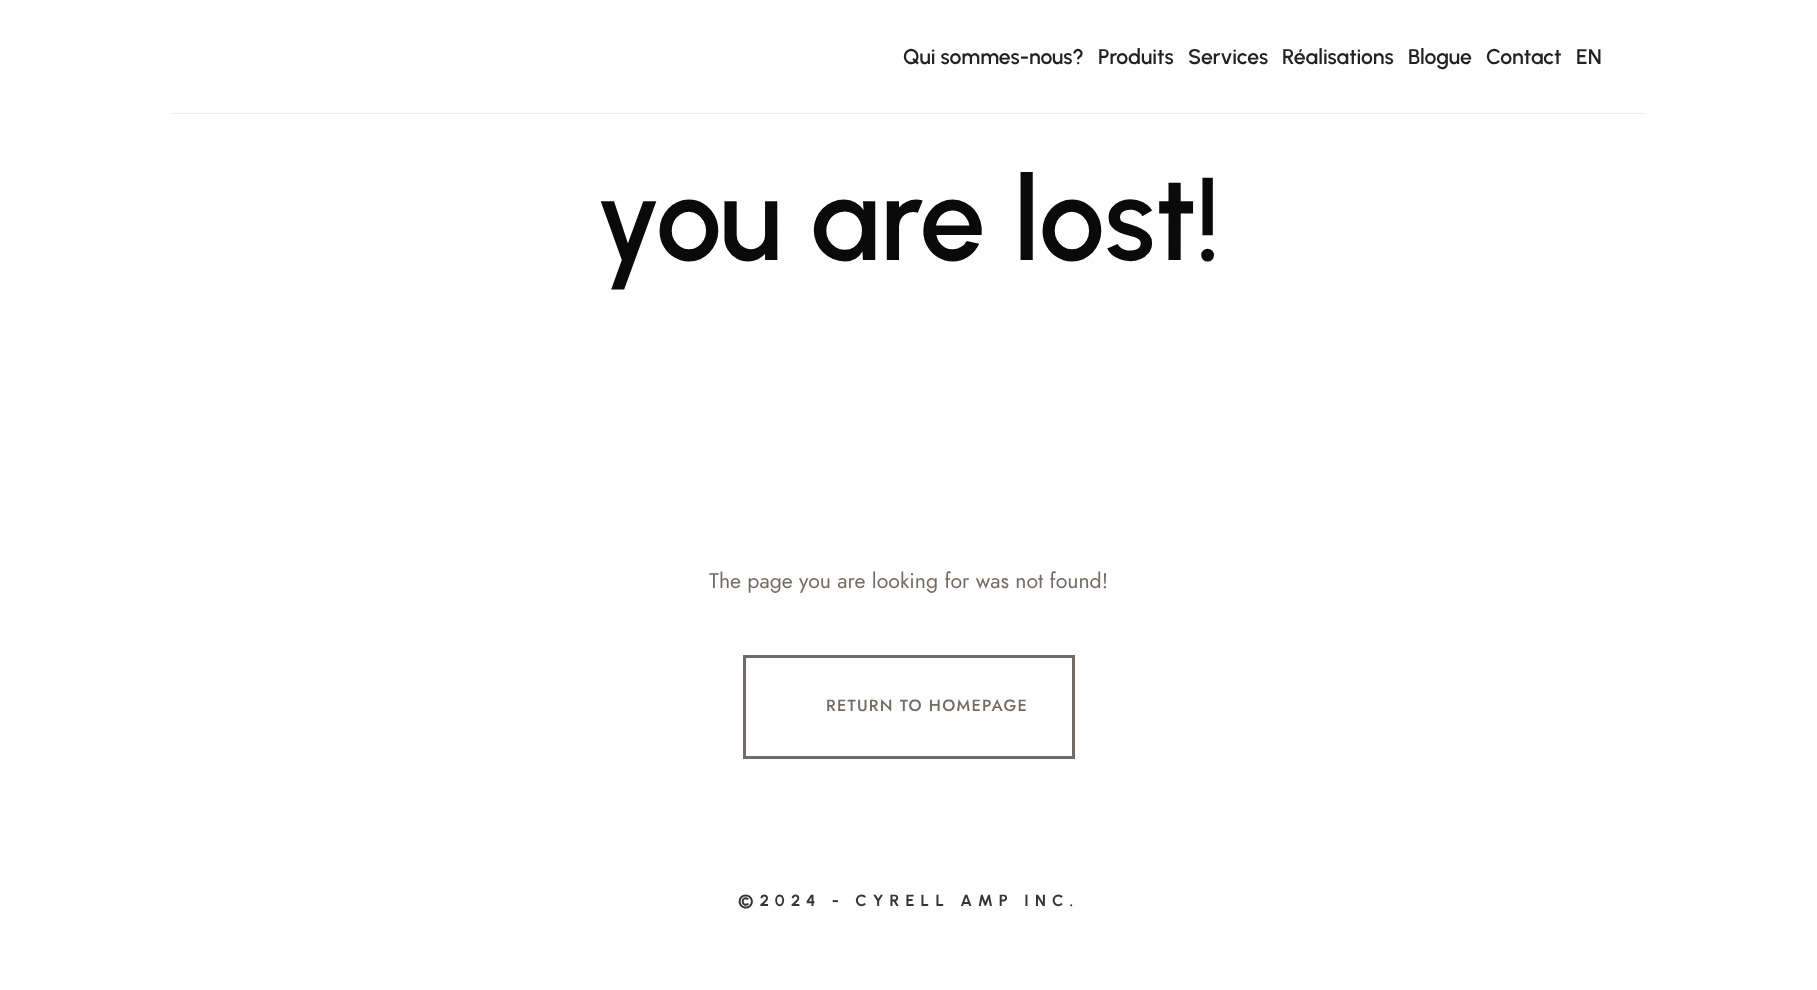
(async () => {
    const canvas = document.querySelector("canvas");
    canvas.width = 1817;
    canvas.height = 990;
    const context = canvas.getContext("2d");
    context.miterLimit = 4;
    context.fontKerning = "normal";
    function write(s, x, y, font, color) {
        context.font = font;
        context.fillStyle = color;
        context.fillText(s, x, y);
    }
    function block(x, y, w, h, color) {
        context.fillStyle = color;
        context.fillRect(x, y, w, h);
    }

    block(0, 0, 1817, 990, "rgb(255, 255, 255)");
    write("Qui sommes-nous?", 903, 64, "600 21.25px Urbanist", "rgb(34, 34, 34)");
    write("Produits", 1098, 64, "600 21.25px Urbanist", "rgb(34, 34, 34)");
    write("Services", 1188, 64, "600 21.25px Urbanist", "rgb(34, 34, 34)");
    write("Réalisations", 1282, 64, "600 21.25px Urbanist", "rgb(34, 34, 34)");
    write("Blogue", 1408, 64, "600 21.25px Urbanist", "rgb(34, 34, 34)");
    write("Contact", 1486, 64, "600 21.25px Urbanist", "rgb(34, 34, 34)");
    write("EN", 1576, 64, "600 21.25px Urbanist", "rgb(34, 34, 34)");
    block(171, 113, 1475, 1, "rgb(238, 238, 238)");
    write("you are lost!", 596, 260, "600 117.5px Urbanist", "rgb(10, 10, 10)");
    write("The page you are looking for was not found!", 709, 588, "21.25px Jost", "rgb(117, 107, 102)");
    context.strokeStyle = "rgb(117, 107, 102)";
    context.lineWidth = 3;
    context.strokeRect(744.5, 656.5, 329, 101);
    context.letterSpacing = "1.25px";
    write("RETURN TO HOMEPAGE", 826, 711, "500 16.25px Jost", "rgb(117, 107, 102)");
    context.letterSpacing = "6.25px";
    write("©2024 - CYRELL AMP INC.", 738, 906, "bold 16.25px Urbanist", "rgb(53, 53, 53)");
})();
